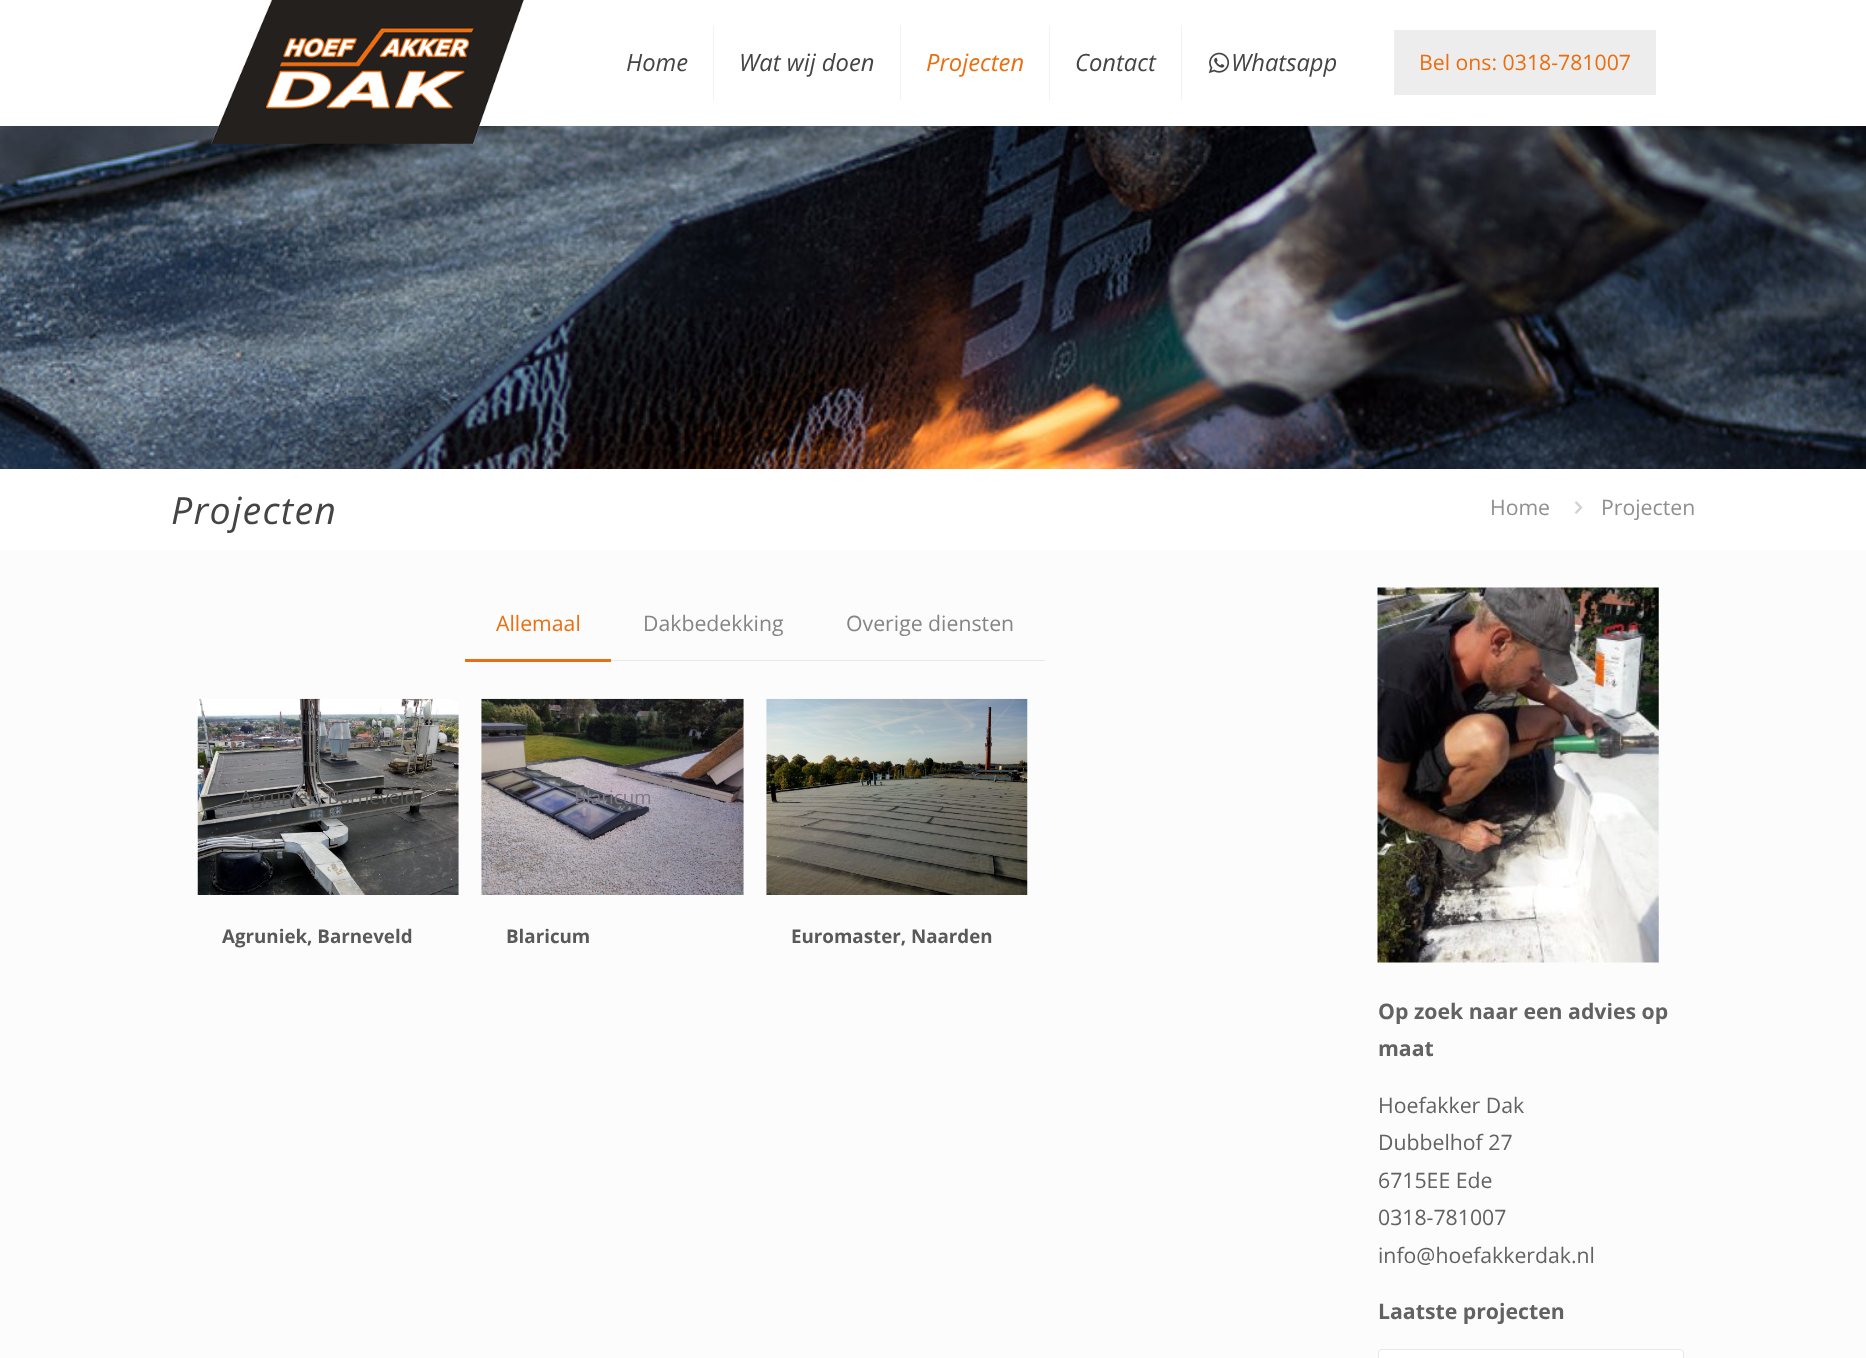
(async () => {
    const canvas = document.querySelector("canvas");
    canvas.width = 1866;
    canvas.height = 1358;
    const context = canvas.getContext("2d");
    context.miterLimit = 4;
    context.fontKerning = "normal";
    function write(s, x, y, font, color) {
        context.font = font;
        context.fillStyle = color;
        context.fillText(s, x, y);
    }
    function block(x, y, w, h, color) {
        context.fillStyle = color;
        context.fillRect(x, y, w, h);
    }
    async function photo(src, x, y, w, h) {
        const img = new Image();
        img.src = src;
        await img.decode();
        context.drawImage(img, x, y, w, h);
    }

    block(0, 0, 1866, 1358, "rgb(252, 252, 252)");
    await photo("media/1.png", 0, 126, 1866, 343);
    block(0, 0, 1866, 126, "rgb(255, 255, 255)");
    await photo("media/2.png", 211, 0, 313, 144);
    block(713, 25, 1, 75, "rgb(242, 242, 242)");
    write("Home", 626, 71, "italic 23.75px Open Sans", "rgb(68, 68, 68)");
    block(900, 25, 1, 75, "rgb(242, 242, 242)");
    write("Wat wij doen", 739, 71, "italic 23.75px Open Sans", "rgb(68, 68, 68)");
    block(1049, 25, 1, 75, "rgb(242, 242, 242)");
    write("Projecten", 926, 71, "italic 23.75px Open Sans", "rgb(235, 110, 17)");
    block(1181, 25, 1, 75, "rgb(242, 242, 242)");
    write("Contact", 1075, 71, "italic 23.75px Open Sans", "rgb(68, 68, 68)");
    await photo("media/3.png", 1208, 52, 22, 22);
    write("Whatsapp", 1231, 71, "italic 23.75px Open Sans", "rgb(68, 68, 68)");
    block(1394, 30, 262, 65, "rgb(237, 237, 237)");
    write("Bel ons: 0318-781007", 1419, 70, "21.25px Open Sans", "rgb(235, 110, 17)");
    block(0, 469, 1866, 81, "rgb(255, 255, 255)");
    context.letterSpacing = "1.25px";
    write("Projecten", 171, 524, "italic 37.5px Open Sans", "rgb(68, 68, 68)");
    context.letterSpacing = "0px";
    write("Home", 1490, 515, "21.25px Open Sans", "rgb(143, 143, 143)");
    await photo("media/4.png", 1575, 501, 8, 13);
    write("Projecten", 1601, 515, "21.25px Open Sans", "rgb(143, 143, 143)");
    block(611, 660, 434, 1, "rgb(232, 232, 232)");
    write("Allemaal", 496, 631, "21.25px Open Sans", "rgb(235, 110, 17)");
    block(465, 659, 146, 3, "rgb(235, 110, 17)");
    write("Dakbedekking", 643, 631, "21.25px Open Sans", "rgb(133, 133, 133)");
    write("Overige diensten", 846, 631, "21.25px Open Sans", "rgb(133, 133, 133)");
    await photo("media/5.png", 197, 698, 262, 197);
    write("Agruniek, Barneveld", 240, 804, "18.75px Open Sans", "rgb(89, 89, 89)");
    write("Agruniek, Barneveld", 222, 943, "bold 18.75px Open Sans", "rgb(89, 89, 89)");
    await photo("media/6.png", 481, 698, 263, 197);
    write("Blaricum", 574, 804, "18.75px Open Sans", "rgb(124, 120, 133)");
    write("Blaricum", 506, 943, "bold 18.75px Open Sans", "rgb(89, 89, 89)");
    await photo("media/7.png", 766, 698, 262, 197);
    write("Euromaster, Naarden", 791, 943, "bold 18.75px Open Sans", "rgb(89, 89, 89)");
    await photo("media/8.png", 1377, 587, 282, 376);
    write("Op zoek naar een advies op", 1378, 1019, "bold 21.25px Open Sans", "rgb(98, 98, 98)");
    write("maat", 1378, 1056, "bold 21.25px Open Sans", "rgb(98, 98, 98)");
    write("Hoefakker Dak", 1378, 1113, "21.25px Open Sans", "rgb(98, 98, 98)");
    write("Dubbelhof 27", 1378, 1150, "21.25px Open Sans", "rgb(98, 98, 98)");
    write("6715EE Ede", 1378, 1188, "21.25px Open Sans", "rgb(98, 98, 98)");
    write("0318-781007", 1378, 1225, "21.25px Open Sans", "rgb(98, 98, 98)");
    write("info@hoefakkerdak.nl", 1378, 1263, "21.25px Open Sans", "rgb(98, 98, 98)");
    write("Laatste projecten", 1378, 1319, "bold 21.25px Open Sans", "rgb(98, 98, 98)");
    context.save();
    context.beginPath();
    context.roundRect(1378, 1349, 306, 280, 4);
    context.clip();
    block(1378, 1350, 306, 8, "rgb(255, 255, 255)");
    context.restore();
    context.beginPath();
    context.roundRect(1378.5, 1349.5, 305, 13, 3.5);
    context.strokeStyle = "rgb(232, 232, 232)";
    context.stroke();
})();
